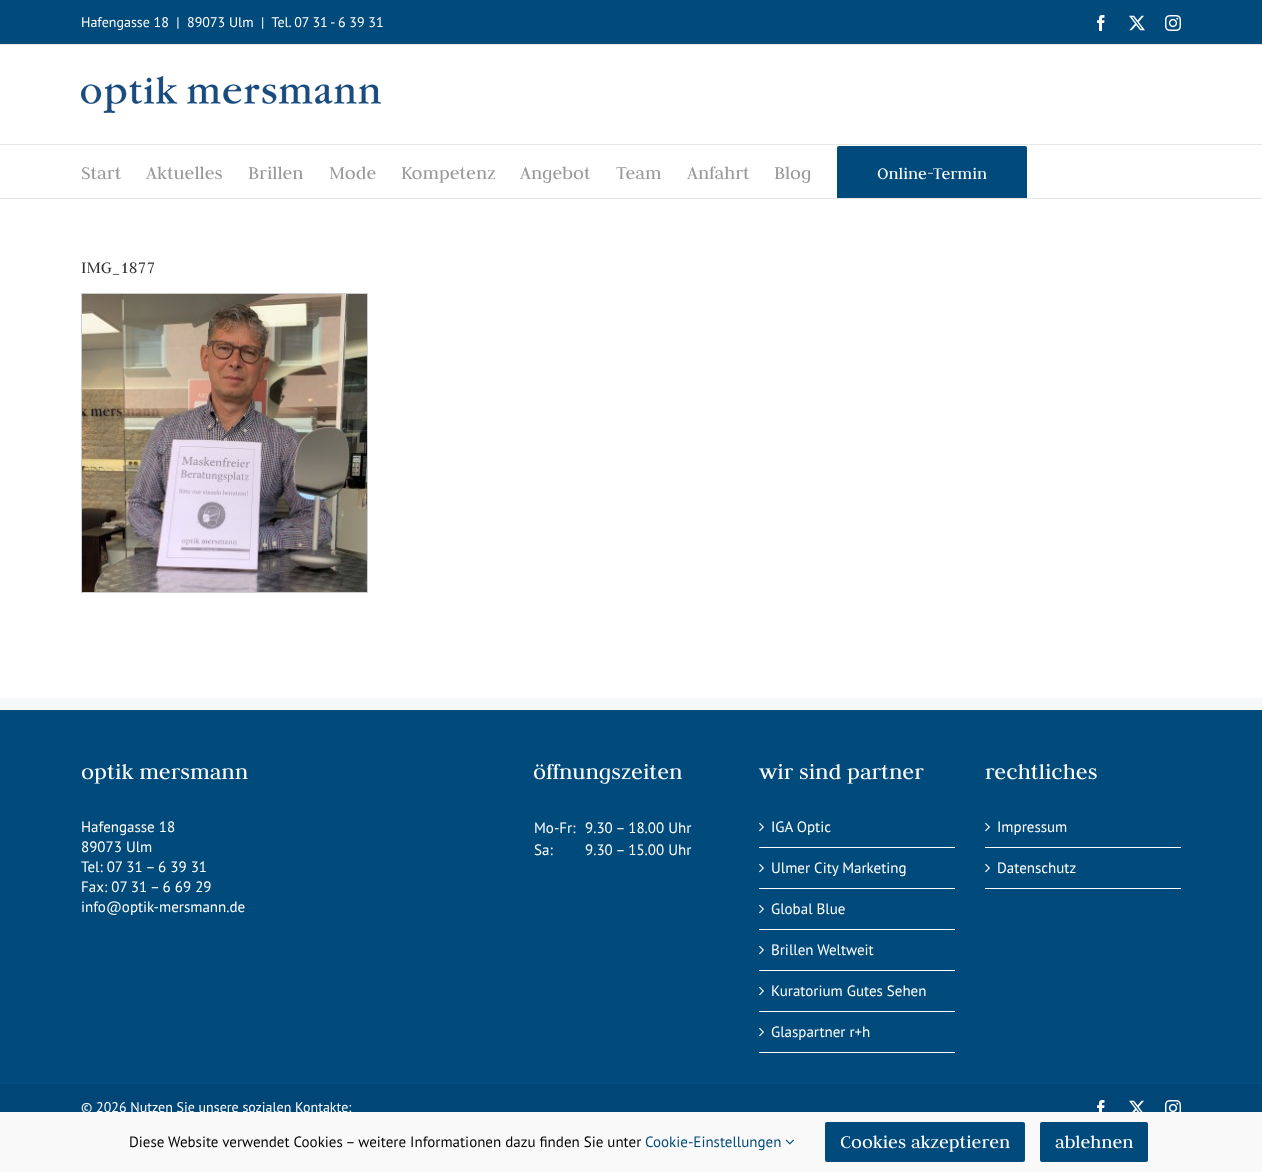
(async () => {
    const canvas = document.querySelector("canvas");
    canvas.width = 1262;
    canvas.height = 1172;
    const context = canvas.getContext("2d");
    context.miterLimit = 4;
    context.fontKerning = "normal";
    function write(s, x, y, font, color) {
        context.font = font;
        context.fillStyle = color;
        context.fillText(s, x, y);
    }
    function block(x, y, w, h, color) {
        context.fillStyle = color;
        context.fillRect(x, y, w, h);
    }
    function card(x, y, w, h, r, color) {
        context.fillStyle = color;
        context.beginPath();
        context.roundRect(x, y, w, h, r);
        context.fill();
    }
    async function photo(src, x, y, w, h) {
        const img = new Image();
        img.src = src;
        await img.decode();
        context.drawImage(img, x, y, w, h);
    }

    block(0, 0, 1262, 1172, "rgb(255, 255, 255)");
    block(0, 0, 1262, 44, "rgb(0, 75, 124)");
    block(0, 44, 1262, 1, "rgb(229, 229, 229)");
    write("Hafengasse 18  |  89073 Ulm  |  Tel. 07 31 - 6 39 31", 81, 27, "14px PT Sans", "rgb(255, 255, 255)");
    await photo("media/1.png", 1097, 15, 8, 16);
    await photo("media/2.png", 1129, 15, 16, 16);
    await photo("media/3.png", 1165, 15, 16, 16);
    block(0, 144, 1262, 1, "rgb(229, 229, 229)");
    await photo("media/4.png", 81, 76, 300, 37);
    block(0, 198, 1262, 1, "rgb(229, 229, 229)");
    write("Start", 81, 179, "20px Judson", "rgb(153, 153, 153)");
    write("Aktuelles", 146, 179, "20px Judson", "rgb(153, 153, 153)");
    write("Brillen", 248, 179, "20px Judson", "rgb(153, 153, 153)");
    write("Mode", 329, 179, "20px Judson", "rgb(153, 153, 153)");
    write("Kompetenz", 401, 179, "20px Judson", "rgb(153, 153, 153)");
    write("Angebot", 520, 179, "20px Judson", "rgb(153, 153, 153)");
    write("Team", 616, 179, "20px Judson", "rgb(153, 153, 153)");
    write("Anfahrt", 687, 179, "20px Judson", "rgb(153, 153, 153)");
    write("Blog", 774, 179, "20px Judson", "rgb(153, 153, 153)");
    context.fillStyle = "rgb(0, 75, 124)";
    context.beginPath();
    context.roundRect(837, 146, 190, 52, [2, 2, 0, 0]);
    context.fill();
    write("Online-Termin", 877, 179, "18px Judson", "rgb(255, 255, 255)");
    write("IMG_1877", 81, 273, "18px Judson", "rgb(51, 51, 51)");
    context.strokeStyle = "rgb(204, 204, 204)";
    context.strokeRect(81.5, 293.5, 286, 299);
    await photo("media/5.png", 82, 294, 285, 298);
    block(0, 710, 1262, 373, "rgb(0, 75, 124)");
    block(0, 698, 1262, 12, "rgb(245, 248, 249)");
    write("optik mersmann", 81, 779, "24px Judson", "rgb(255, 255, 255)");
    write("Hafengasse 18", 81, 832, "15px PT Sans", "rgb(255, 255, 255)");
    write("89073 Ulm", 81, 852, "15px PT Sans", "rgb(255, 255, 255)");
    write("Tel: 07 31 – 6 39 31", 81, 872, "15px PT Sans", "rgb(255, 255, 255)");
    write("Fax: 07 31 – 6 69 29", 81, 892, "15px PT Sans", "rgb(255, 255, 255)");
    write("info@optik-mersmann.de", 81, 912, "15px PT Sans", "rgb(255, 255, 255)");
    write("öffnungszeiten", 533, 779, "24px Judson", "rgb(255, 255, 255)");
    write("Mo-Fr:", 534, 833, "15px PT Sans", "rgb(255, 255, 255)");
    write("9.30 – 18.00 Uhr", 585, 833, "15px PT Sans", "rgb(255, 255, 255)");
    write("Sa:", 534, 855, "15px PT Sans", "rgb(255, 255, 255)");
    write("9.30 – 15.00 Uhr", 585, 855, "15px PT Sans", "rgb(255, 255, 255)");
    write("wir sind partner", 759, 779, "24px Judson", "rgb(255, 255, 255)");
    block(759, 847, 196, 1, "rgb(255, 255, 255)");
    await photo("media/6.png", 759, 822, 5, 10);
    write("IGA Optic", 771, 832, "15px PT Sans", "rgb(255, 255, 255)");
    block(759, 888, 196, 1, "rgb(255, 255, 255)");
    await photo("media/6.png", 759, 863, 5, 10);
    write("Ulmer City Marketing", 771, 873, "15px PT Sans", "rgb(255, 255, 255)");
    block(759, 929, 196, 1, "rgb(255, 255, 255)");
    await photo("media/6.png", 759, 904, 5, 10);
    write("Global Blue", 771, 914, "15px PT Sans", "rgb(255, 255, 255)");
    block(759, 970, 196, 1, "rgb(255, 255, 255)");
    await photo("media/6.png", 759, 945, 5, 10);
    write("Brillen Weltweit", 771, 955, "15px PT Sans", "rgb(255, 255, 255)");
    block(759, 1011, 196, 1, "rgb(255, 255, 255)");
    await photo("media/6.png", 759, 986, 5, 10);
    write("Kuratorium Gutes Sehen", 771, 996, "15px PT Sans", "rgb(255, 255, 255)");
    block(759, 1052, 196, 1, "rgb(255, 255, 255)");
    await photo("media/6.png", 759, 1027, 5, 10);
    write("Glaspartner r+h", 771, 1037, "15px PT Sans", "rgb(255, 255, 255)");
    write("rechtliches", 985, 779, "24px Judson", "rgb(255, 255, 255)");
    block(985, 847, 196, 1, "rgb(255, 255, 255)");
    await photo("media/6.png", 985, 822, 5, 10);
    write("Impressum", 997, 832, "15px PT Sans", "rgb(255, 255, 255)");
    block(985, 888, 196, 1, "rgb(255, 255, 255)");
    await photo("media/6.png", 985, 863, 5, 10);
    write("Datenschutz", 997, 873, "15px PT Sans", "rgb(255, 255, 255)");
    block(0, 1084, 1262, 28, "rgb(0, 71, 119)");
    block(0, 1083, 1262, 1, "rgb(0, 79, 132)");
    write("© 2026 Nutzen Sie unsere sozialen Kontakte:", 81, 1112, "14px PT Sans", "rgb(255, 255, 255)");
    await photo("media/7.png", 1097, 1100, 8, 12);
    await photo("media/8.png", 1129, 1100, 15, 12);
    await photo("media/9.png", 1165, 1100, 16, 12);
    block(0, 1112, 1262, 60, "rgb(249, 249, 249)");
    write("Diese Website verwendet Cookies – weitere Informationen dazu finden Sie unter", 129, 1147, "15px PT Sans", "rgb(0, 0, 0)");
    write("Cookie-Einstellungen", 645, 1147, "15px PT Sans", "rgb(0, 75, 124)");
    await photo("media/10.png", 785, 1139, 9, 6);
    card(825, 1122, 200, 40, 2, "rgb(0, 75, 124)");
    write("Cookies akzeptieren", 840, 1148, "20px Judson", "rgb(255, 255, 255)");
    card(1040, 1122, 108, 40, 2, "rgb(0, 75, 124)");
    write("ablehnen", 1055, 1148, "20px Judson", "rgb(255, 255, 255)");
})();
